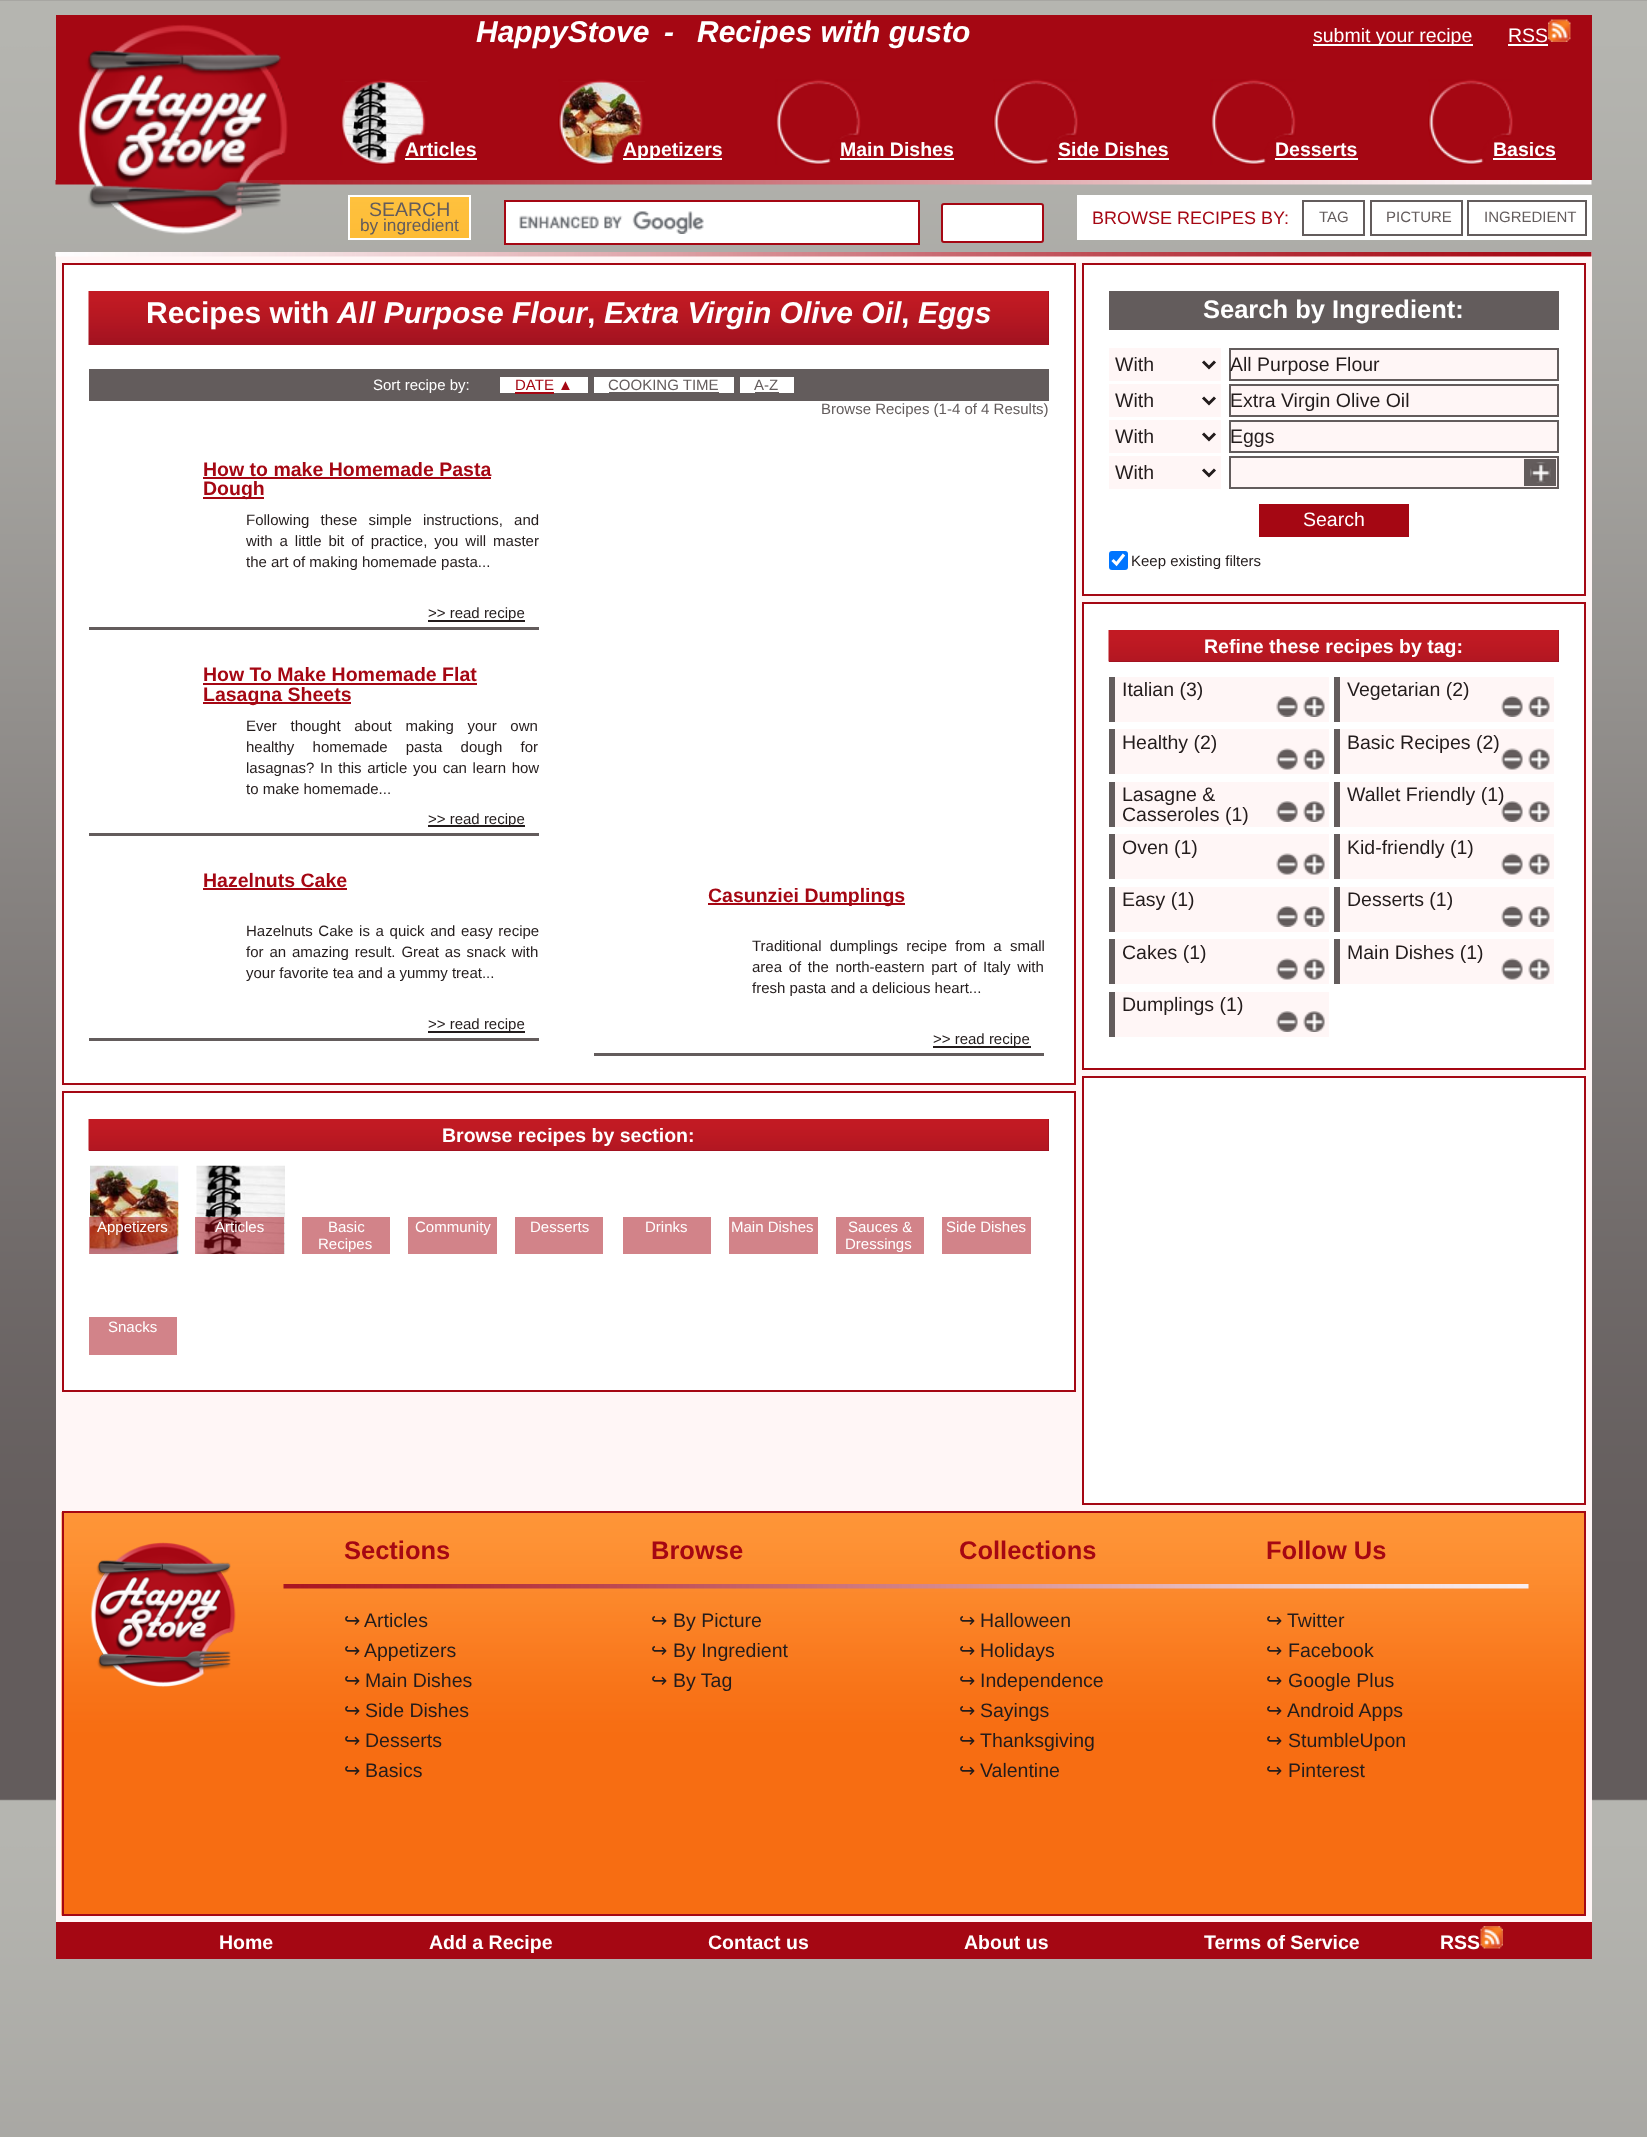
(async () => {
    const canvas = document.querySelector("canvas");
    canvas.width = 1647;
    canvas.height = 2137;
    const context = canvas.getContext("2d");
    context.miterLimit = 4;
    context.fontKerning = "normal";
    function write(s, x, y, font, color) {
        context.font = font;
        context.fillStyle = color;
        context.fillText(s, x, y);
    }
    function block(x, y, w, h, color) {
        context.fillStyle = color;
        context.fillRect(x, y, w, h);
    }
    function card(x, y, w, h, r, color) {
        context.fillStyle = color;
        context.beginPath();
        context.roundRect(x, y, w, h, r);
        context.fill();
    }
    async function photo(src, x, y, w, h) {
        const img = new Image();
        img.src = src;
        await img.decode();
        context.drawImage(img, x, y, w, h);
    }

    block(0, 0, 1647, 2137, "rgb(255, 255, 255)");
    await photo("media/1.png", 0, 0, 1647, 2137);
    block(56, 252, 1536, 1670, "rgb(255, 246, 246)");
    await photo("media/2.png", 56, 180, 1536, 72);
    block(56, 15, 1536, 165, "rgb(165, 7, 19)");
    await photo("media/11.png", 55, 180, 1537, 5);
    await photo("media/3.png", 78, 24, 210, 211);
    write("HappyStove", 476, 42, "italic bold 30px Liberation Sans", "rgb(255, 255, 255)");
    write("-", 664, 42, "italic bold 30px Liberation Sans", "rgb(255, 255, 255)");
    write("Recipes with gusto", 697, 42, "italic bold 30px Liberation Sans", "rgb(255, 255, 255)");
    block(1313, 44, 160, 2, "rgb(255, 255, 255)");
    write("submit your recipe", 1313, 42, "19.5px Liberation Sans", "rgb(255, 255, 255)");
    write("RSS", 1508, 42, "19.5px Liberation Sans", "rgb(255, 255, 255)");
    block(1508, 44, 40, 2, "rgb(255, 255, 255)");
    await photo("media/4.png", 1548, 19, 23, 23);
    await photo("media/6.png", 345, 81, 83, 82);
    await photo("media/5.png", 340, 79, 88, 86);
    write("Articles", 405, 156, "bold 19.5px Liberation Sans", "rgb(255, 255, 255)");
    block(405, 158, 72, 2, "rgb(255, 255, 255)");
    await photo("media/8.png", 562, 81, 83, 82);
    await photo("media/7.png", 558, 79, 87, 86);
    block(623, 158, 99, 2, "rgb(255, 255, 255)");
    write("Appetizers", 623, 156, "bold 19.5px Liberation Sans", "rgb(255, 255, 255)");
    await photo("media/9.png", 775, 79, 86, 86);
    write("Main Dishes", 840, 156, "bold 19.5px Liberation Sans", "rgb(255, 255, 255)");
    block(840, 158, 114, 2, "rgb(255, 255, 255)");
    await photo("media/10.png", 993, 79, 85, 86);
    write("Side Dishes", 1058, 156, "bold 19.5px Liberation Sans", "rgb(255, 255, 255)");
    block(1058, 158, 111, 2, "rgb(255, 255, 255)");
    await photo("media/9.png", 1210, 79, 86, 86);
    write("Desserts", 1275, 156, "bold 19.5px Liberation Sans", "rgb(255, 255, 255)");
    block(1275, 158, 83, 2, "rgb(255, 255, 255)");
    await photo("media/10.png", 1428, 79, 85, 86);
    write("Basics", 1493, 156, "bold 19.5px Liberation Sans", "rgb(255, 255, 255)");
    block(1493, 158, 63, 2, "rgb(255, 255, 255)");
    await photo("media/12.png", 350, 197, 119, 41);
    context.strokeStyle = "rgb(255, 255, 255)";
    context.lineWidth = 2;
    context.strokeRect(349, 196, 121, 43);
    write("SEARCH", 369, 216, "19.5px Liberation Sans", "rgb(99, 92, 92)");
    write("by ingredient", 360, 231, "17.25px Liberation Sans", "rgb(99, 92, 92)");
    context.fillStyle = "rgb(255, 255, 255)";
    context.beginPath();
    context.rect(505, 201, 414, 43);
    context.fill();
    context.strokeStyle = "rgb(165, 7, 19)";
    context.stroke();
    await photo("media/13.png", 519, 211, 185, 23);
    context.beginPath();
    context.roundRect(942, 204, 101, 38, 2);
    context.fill();
    context.stroke();
    block(1077, 195, 515, 45, "rgb(255, 255, 255)");
    write("BROWSE RECIPES BY:", 1092, 224, "18px Liberation Sans", "rgb(165, 7, 19)");
    context.strokeStyle = "rgb(99, 92, 92)";
    context.strokeRect(1303, 201, 61, 34);
    write("TAG", 1319, 222, "15px Liberation Sans", "rgb(99, 92, 92)");
    context.strokeRect(1371, 201, 91, 34);
    write("PICTURE", 1386, 222, "15px Liberation Sans", "rgb(99, 92, 92)");
    context.strokeRect(1468, 201, 118, 34);
    write("INGREDIENT", 1484, 222, "15px Liberation Sans", "rgb(99, 92, 92)");
    await photo("media/14.png", 55, 252, 1537, 5);
    context.fillStyle = "rgb(255, 255, 255)";
    context.beginPath();
    context.rect(63, 264, 1012, 820);
    context.fill();
    context.strokeStyle = "rgb(165, 7, 19)";
    context.stroke();
    block(1048, 291, 1, 54, "rgb(165, 7, 19)");
    await photo("media/15.png", 88, 291, 961, 54);
    write("Recipes with", 146, 323, "bold 30px Liberation Sans", "rgb(255, 255, 255)");
    write("All Purpose Flour", 337, 323, "italic bold 30px Liberation Sans", "rgb(255, 255, 255)");
    write(",", 587, 323, "bold 30px Liberation Sans", "rgb(255, 255, 255)");
    write("Extra Virgin Olive Oil", 604, 323, "italic bold 30px Liberation Sans", "rgb(255, 255, 255)");
    write(",", 901, 323, "bold 30px Liberation Sans", "rgb(255, 255, 255)");
    write("Eggs", 918, 323, "italic bold 30px Liberation Sans", "rgb(255, 255, 255)");
    block(89, 369, 960, 32, "rgb(99, 92, 92)");
    write("Sort recipe by:", 373, 390, "15px Liberation Sans", "rgb(255, 255, 255)");
    block(500, 377, 88, 16, "rgb(255, 255, 255)");
    write("DATE ▲", 515, 390, "15px Liberation Sans", "rgb(165, 7, 19)");
    block(515, 392, 39, 2, "rgb(165, 7, 19)");
    block(594, 377, 140, 16, "rgb(255, 255, 255)");
    write("COOKING TIME", 608, 390, "15px Liberation Sans", "rgb(99, 92, 92)");
    block(609, 392, 110, 1, "rgb(99, 92, 92)");
    block(740, 377, 54, 16, "rgb(255, 255, 255)");
    write("A-Z", 754, 390, "15px Liberation Sans", "rgb(99, 92, 92)");
    block(755, 392, 24, 1, "rgb(99, 92, 92)");
    write("Browse Recipes (1-4 of 4 Results)", 821, 414, "15px Liberation Sans", "rgb(99, 92, 92)");
    write("How to make Homemade Pasta", 203, 476, "bold 19.5px Liberation Sans", "rgb(165, 7, 19)");
    block(203, 477, 288, 2, "rgb(165, 7, 19)");
    block(203, 497, 61, 2, "rgb(165, 7, 19)");
    write("Dough", 203, 495, "bold 19.5px Liberation Sans", "rgb(165, 7, 19)");
    context.wordSpacing = "7px";
    write("Following these simple instructions, and", 246, 525, "15px Liberation Sans", "rgb(35, 28, 28)");
    context.wordSpacing = "2.75px";
    write("with a little bit of practice, you will master", 246, 546, "15px Liberation Sans", "rgb(35, 28, 28)");
    context.wordSpacing = "0px";
    write("the art of making homemade pasta...", 246, 567, "15px Liberation Sans", "rgb(35, 28, 28)");
    block(428, 620, 97, 2, "rgb(35, 28, 28)");
    write(">> read recipe", 428, 618, "15px Liberation Sans", "rgb(35, 28, 28)");
    block(89, 627, 450, 3, "rgb(99, 92, 92)");
    write("How To Make Homemade Flat", 203, 681, "bold 19.5px Liberation Sans", "rgb(165, 7, 19)");
    block(203, 683, 274, 2, "rgb(165, 7, 19)");
    block(203, 702, 148, 2, "rgb(165, 7, 19)");
    write("Lasagna Sheets", 203, 701, "bold 19.5px Liberation Sans", "rgb(165, 7, 19)");
    context.wordSpacing = "9.5px";
    write("Ever thought about making your own", 246, 731, "15px Liberation Sans", "rgb(35, 28, 28)");
    context.wordSpacing = "14px";
    write("healthy homemade pasta dough for", 246, 752, "15px Liberation Sans", "rgb(35, 28, 28)");
    context.wordSpacing = "1.5px";
    write("lasagnas? In this article you can learn how", 246, 773, "15px Liberation Sans", "rgb(35, 28, 28)");
    context.wordSpacing = "0px";
    write("to make homemade...", 246, 794, "15px Liberation Sans", "rgb(35, 28, 28)");
    block(428, 825, 97, 2, "rgb(35, 28, 28)");
    write(">> read recipe", 428, 824, "15px Liberation Sans", "rgb(35, 28, 28)");
    block(89, 833, 450, 3, "rgb(99, 92, 92)");
    write("Hazelnuts Cake", 203, 887, "bold 19.5px Liberation Sans", "rgb(165, 7, 19)");
    block(203, 888, 144, 2, "rgb(165, 7, 19)");
    context.wordSpacing = "1.5px";
    write("Hazelnuts Cake is a quick and easy recipe", 246, 936, "15px Liberation Sans", "rgb(35, 28, 28)");
    context.wordSpacing = "1.75px";
    write("for an amazing result. Great as snack with", 246, 957, "15px Liberation Sans", "rgb(35, 28, 28)");
    context.wordSpacing = "0px";
    write("your favorite tea and a yummy treat...", 246, 978, "15px Liberation Sans", "rgb(35, 28, 28)");
    block(428, 1031, 97, 2, "rgb(35, 28, 28)");
    write(">> read recipe", 428, 1029, "15px Liberation Sans", "rgb(35, 28, 28)");
    block(89, 1038, 450, 3, "rgb(99, 92, 92)");
    block(708, 903, 197, 2, "rgb(165, 7, 19)");
    write("Casunziei Dumplings", 708, 902, "bold 19.5px Liberation Sans", "rgb(165, 7, 19)");
    context.wordSpacing = "4px";
    write("Traditional dumplings recipe from a small", 752, 951, "15px Liberation Sans", "rgb(35, 28, 28)");
    context.wordSpacing = "2.5px";
    write("area of the north-eastern part of Italy with", 752, 972, "15px Liberation Sans", "rgb(35, 28, 28)");
    context.wordSpacing = "0px";
    write("fresh pasta and a delicious heart...", 752, 993, "15px Liberation Sans", "rgb(35, 28, 28)");
    block(933, 1046, 98, 2, "rgb(35, 28, 28)");
    write(">> read recipe", 933, 1044, "15px Liberation Sans", "rgb(35, 28, 28)");
    block(594, 1053, 450, 3, "rgb(99, 92, 92)");
    context.fillStyle = "rgb(255, 255, 255)";
    context.beginPath();
    context.rect(63, 1092, 1012, 299);
    context.fill();
    context.stroke();
    block(89, 1119, 960, 32, "rgb(146, 15, 31)");
    await photo("media/16.png", 88, 1119, 961, 32);
    write("Browse recipes by section:", 442, 1142, "bold 19.5px Liberation Sans", "rgb(255, 255, 255)");
    await photo("media/17.png", 90, 1165, 89, 89);
    block(89, 1217, 88, 37, "rgba(165, 7, 19, 0.5)");
    write("Appetizers", 97, 1232, "15px Liberation Sans", "rgb(255, 255, 255)");
    await photo("media/18.png", 196, 1165, 89, 89);
    block(195, 1217, 89, 37, "rgba(165, 7, 19, 0.5)");
    write("Articles", 215, 1232, "15px Liberation Sans", "rgb(255, 255, 255)");
    block(302, 1217, 88, 37, "rgb(210, 131, 137)");
    write("Basic", 328, 1232, "15px Liberation Sans", "rgb(255, 255, 255)");
    write("Recipes", 318, 1249, "15px Liberation Sans", "rgb(255, 255, 255)");
    block(408, 1217, 89, 37, "rgb(210, 131, 137)");
    write("Community", 415, 1232, "15px Liberation Sans", "rgb(255, 255, 255)");
    block(515, 1217, 88, 37, "rgb(210, 131, 137)");
    write("Desserts", 530, 1232, "15px Liberation Sans", "rgb(255, 255, 255)");
    block(623, 1217, 88, 37, "rgb(210, 131, 137)");
    write("Drinks", 645, 1232, "15px Liberation Sans", "rgb(255, 255, 255)");
    block(729, 1217, 89, 37, "rgb(210, 131, 137)");
    write("Main Dishes", 731, 1232, "15px Liberation Sans", "rgb(255, 255, 255)");
    block(836, 1217, 88, 37, "rgb(210, 131, 137)");
    write("Sauces &", 848, 1232, "15px Liberation Sans", "rgb(255, 255, 255)");
    write("Dressings", 845, 1249, "15px Liberation Sans", "rgb(255, 255, 255)");
    block(942, 1217, 89, 37, "rgb(210, 131, 137)");
    write("Side Dishes", 946, 1232, "15px Liberation Sans", "rgb(255, 255, 255)");
    block(89, 1317, 88, 38, "rgb(210, 131, 137)");
    write("Snacks", 108, 1332, "15px Liberation Sans", "rgb(255, 255, 255)");
    context.beginPath();
    context.rect(1083, 264, 502, 331);
    context.fill();
    context.stroke();
    block(1109, 291, 450, 39, "rgb(99, 92, 92)");
    write("Search by Ingredient:", 1203, 318, "bold 25.5px Liberation Sans", "rgb(255, 255, 255)");
    block(1109, 348, 112, 33, "rgb(255, 246, 246)");
    context.beginPath();
    context.moveTo(1203, 361.5);
    context.lineTo(1209, 367.5);
    context.lineTo(1215, 361.5);
    context.strokeStyle = "rgb(35, 28, 28)";
    context.lineWidth = 3;
    context.stroke();
    write("With", 1115, 371, "19.5px Liberation Sans", "rgb(35, 28, 28)");
    context.fillStyle = "rgb(255, 246, 246)";
    context.beginPath();
    context.rect(1230, 349, 328, 31);
    context.fill();
    context.strokeStyle = "rgb(99, 92, 92)";
    context.lineWidth = 2;
    context.stroke();
    write("All Purpose Flour", 1230, 371, "19.5px Liberation Sans", "rgb(35, 28, 28)");
    block(1109, 384, 112, 33, "rgb(255, 246, 246)");
    context.beginPath();
    context.moveTo(1203, 397.5);
    context.lineTo(1209, 403.5);
    context.lineTo(1215, 397.5);
    context.strokeStyle = "rgb(35, 28, 28)";
    context.lineWidth = 3;
    context.stroke();
    write("With", 1115, 407, "19.5px Liberation Sans", "rgb(35, 28, 28)");
    context.fillStyle = "rgb(255, 246, 246)";
    context.beginPath();
    context.rect(1230, 385, 328, 31);
    context.fill();
    context.strokeStyle = "rgb(99, 92, 92)";
    context.lineWidth = 2;
    context.stroke();
    write("Extra Virgin Olive Oil", 1230, 407, "19.5px Liberation Sans", "rgb(35, 28, 28)");
    block(1109, 420, 112, 33, "rgb(255, 246, 246)");
    context.beginPath();
    context.moveTo(1203, 433.5);
    context.lineTo(1209, 439.5);
    context.lineTo(1215, 433.5);
    context.strokeStyle = "rgb(35, 28, 28)";
    context.lineWidth = 3;
    context.stroke();
    write("With", 1115, 443, "19.5px Liberation Sans", "rgb(35, 28, 28)");
    context.fillStyle = "rgb(255, 246, 246)";
    context.beginPath();
    context.rect(1230, 421, 328, 31);
    context.fill();
    context.strokeStyle = "rgb(99, 92, 92)";
    context.lineWidth = 2;
    context.stroke();
    write("Eggs", 1230, 443, "19.5px Liberation Sans", "rgb(35, 28, 28)");
    block(1109, 456, 112, 33, "rgb(255, 246, 246)");
    context.beginPath();
    context.moveTo(1203, 469.5);
    context.lineTo(1209, 475.5);
    context.lineTo(1215, 469.5);
    context.strokeStyle = "rgb(35, 28, 28)";
    context.lineWidth = 3;
    context.stroke();
    write("With", 1115, 479, "19.5px Liberation Sans", "rgb(35, 28, 28)");
    context.fillStyle = "rgb(255, 246, 246)";
    context.beginPath();
    context.rect(1230, 457, 328, 31);
    context.fill();
    context.strokeStyle = "rgb(99, 92, 92)";
    context.lineWidth = 2;
    context.stroke();
    block(1524, 459, 32, 27, "rgb(99, 92, 92)");
    await photo("media/19.png", 1530, 462, 21, 21);
    block(1259, 504, 150, 33, "rgb(165, 7, 19)");
    write("Search", 1303, 526, "19.5px Liberation Sans", "rgb(255, 255, 255)");
    card(1109, 551, 19, 19, 3, "rgb(0, 117, 255)");
    context.beginPath();
    context.moveTo(1112.5, 560);
    context.lineTo(1116.5, 564);
    context.lineTo(1124, 554.5);
    context.strokeStyle = "rgb(255, 255, 255)";
    context.lineWidth = 3.1;
    context.stroke();
    write("Keep existing filters", 1131, 566, "15px Liberation Sans", "rgb(35, 28, 28)");
    context.fillStyle = "rgb(255, 255, 255)";
    context.beginPath();
    context.rect(1083, 603, 502, 466);
    context.fill();
    context.strokeStyle = "rgb(165, 7, 19)";
    context.lineWidth = 2;
    context.stroke();
    block(1109, 630, 450, 32, "rgb(146, 15, 31)");
    await photo("media/20.png", 1108, 630, 451, 32);
    write("Refine these recipes by tag:", 1204, 653, "bold 19.5px Liberation Sans", "rgb(255, 255, 255)");
    block(1109, 677, 6, 45, "rgb(99, 92, 92)");
    block(1115, 677, 214, 45, "rgb(255, 246, 246)");
    write("Italian (3)", 1122, 696, "19.5px Liberation Sans", "rgb(35, 28, 28)");
    await photo("media/21.png", 1276, 696, 22, 21);
    await photo("media/22.png", 1303, 696, 22, 21);
    block(1334, 677, 6, 45, "rgb(99, 92, 92)");
    block(1340, 677, 214, 45, "rgb(255, 246, 246)");
    write("Vegetarian (2)", 1347, 696, "19.5px Liberation Sans", "rgb(35, 28, 28)");
    await photo("media/23.png", 1501, 696, 22, 21);
    await photo("media/24.png", 1528, 696, 22, 21);
    block(1109, 729, 6, 45, "rgb(99, 92, 92)");
    block(1115, 729, 214, 45, "rgb(255, 246, 246)");
    write("Healthy (2)", 1122, 749, "19.5px Liberation Sans", "rgb(35, 28, 28)");
    await photo("media/25.png", 1276, 748, 22, 22);
    await photo("media/26.png", 1303, 748, 22, 22);
    block(1334, 729, 6, 45, "rgb(99, 92, 92)");
    block(1340, 729, 214, 45, "rgb(255, 246, 246)");
    write("Basic Recipes (2)", 1347, 749, "19.5px Liberation Sans", "rgb(35, 28, 28)");
    await photo("media/27.png", 1501, 748, 22, 22);
    await photo("media/28.png", 1528, 748, 22, 22);
    block(1109, 782, 6, 45, "rgb(99, 92, 92)");
    block(1115, 782, 214, 45, "rgb(255, 246, 246)");
    write("Lasagne &", 1122, 801, "19.5px Liberation Sans", "rgb(35, 28, 28)");
    write("Casseroles (1)", 1122, 821, "19.5px Liberation Sans", "rgb(35, 28, 28)");
    await photo("media/21.png", 1276, 801, 22, 21);
    await photo("media/22.png", 1303, 801, 22, 21);
    block(1334, 782, 6, 45, "rgb(99, 92, 92)");
    block(1340, 782, 214, 45, "rgb(255, 246, 246)");
    write("Wallet Friendly (1)", 1347, 801, "19.5px Liberation Sans", "rgb(35, 28, 28)");
    await photo("media/29.png", 1501, 801, 22, 21);
    await photo("media/24.png", 1528, 801, 22, 21);
    block(1109, 834, 6, 45, "rgb(99, 92, 92)");
    block(1115, 834, 214, 45, "rgb(255, 246, 246)");
    write("Oven (1)", 1122, 854, "19.5px Liberation Sans", "rgb(35, 28, 28)");
    await photo("media/25.png", 1276, 853, 22, 22);
    await photo("media/26.png", 1303, 853, 22, 22);
    block(1334, 834, 6, 45, "rgb(99, 92, 92)");
    block(1340, 834, 214, 45, "rgb(255, 246, 246)");
    write("Kid-friendly (1)", 1347, 854, "19.5px Liberation Sans", "rgb(35, 28, 28)");
    await photo("media/27.png", 1501, 853, 22, 22);
    await photo("media/28.png", 1528, 853, 22, 22);
    block(1109, 887, 6, 45, "rgb(99, 92, 92)");
    block(1115, 887, 214, 45, "rgb(255, 246, 246)");
    write("Easy (1)", 1122, 906, "19.5px Liberation Sans", "rgb(35, 28, 28)");
    await photo("media/21.png", 1276, 906, 22, 21);
    await photo("media/22.png", 1303, 906, 22, 21);
    block(1334, 887, 6, 45, "rgb(99, 92, 92)");
    block(1340, 887, 214, 45, "rgb(255, 246, 246)");
    write("Desserts (1)", 1347, 906, "19.5px Liberation Sans", "rgb(35, 28, 28)");
    await photo("media/23.png", 1501, 906, 22, 21);
    await photo("media/24.png", 1528, 906, 22, 21);
    block(1109, 939, 6, 45, "rgb(99, 92, 92)");
    block(1115, 939, 214, 45, "rgb(255, 246, 246)");
    write("Cakes (1)", 1122, 959, "19.5px Liberation Sans", "rgb(35, 28, 28)");
    await photo("media/25.png", 1276, 958, 22, 22);
    await photo("media/26.png", 1303, 958, 22, 22);
    block(1334, 939, 6, 45, "rgb(99, 92, 92)");
    block(1340, 939, 214, 45, "rgb(255, 246, 246)");
    write("Main Dishes (1)", 1347, 959, "19.5px Liberation Sans", "rgb(35, 28, 28)");
    await photo("media/27.png", 1501, 958, 22, 22);
    await photo("media/28.png", 1528, 958, 22, 22);
    block(1109, 992, 6, 45, "rgb(99, 92, 92)");
    block(1115, 992, 214, 45, "rgb(255, 246, 246)");
    write("Dumplings (1)", 1122, 1011, "19.5px Liberation Sans", "rgb(35, 28, 28)");
    await photo("media/21.png", 1276, 1011, 22, 21);
    await photo("media/22.png", 1303, 1011, 22, 21);
    context.fillStyle = "rgb(255, 255, 255)";
    context.beginPath();
    context.rect(1083, 1077, 502, 427);
    context.fill();
    context.stroke();
    await photo("media/30.png", 61, 1512, 1523, 404);
    context.strokeRect(63, 1512, 1522, 403);
    await photo("media/31.png", 90, 1542, 146, 145);
    write("Sections", 344, 1559, "bold 25.5px Liberation Sans", "rgb(165, 7, 19)");
    write("↪", 344, 1627, "19.5px DejaVu Sans", "rgb(35, 28, 28)");
    write("Articles", 364, 1627, "19.5px Liberation Sans", "rgb(35, 28, 28)");
    write("↪", 344, 1657, "19.5px DejaVu Sans", "rgb(35, 28, 28)");
    write("Appetizers", 364, 1657, "19.5px Liberation Sans", "rgb(35, 28, 28)");
    write("↪", 344, 1687, "19.5px DejaVu Sans", "rgb(35, 28, 28)");
    write("Main Dishes", 365, 1687, "19.5px Liberation Sans", "rgb(35, 28, 28)");
    write("↪", 344, 1717, "19.5px DejaVu Sans", "rgb(35, 28, 28)");
    write("Side Dishes", 365, 1717, "19.5px Liberation Sans", "rgb(35, 28, 28)");
    write("↪", 344, 1747, "19.5px DejaVu Sans", "rgb(35, 28, 28)");
    write("Desserts", 365, 1747, "19.5px Liberation Sans", "rgb(35, 28, 28)");
    write("↪", 344, 1777, "19.5px DejaVu Sans", "rgb(35, 28, 28)");
    write("Basics", 365, 1777, "19.5px Liberation Sans", "rgb(35, 28, 28)");
    write("Browse", 651, 1559, "bold 25.5px Liberation Sans", "rgb(165, 7, 19)");
    write("↪", 651, 1627, "19.5px DejaVu Sans", "rgb(35, 28, 28)");
    write("By Picture", 673, 1627, "19.5px Liberation Sans", "rgb(35, 28, 28)");
    write("↪", 651, 1657, "19.5px DejaVu Sans", "rgb(35, 28, 28)");
    write("By Ingredient", 673, 1657, "19.5px Liberation Sans", "rgb(35, 28, 28)");
    write("↪", 651, 1687, "19.5px DejaVu Sans", "rgb(35, 28, 28)");
    write("By Tag", 673, 1687, "19.5px Liberation Sans", "rgb(35, 28, 28)");
    write("Collections", 959, 1559, "bold 25.5px Liberation Sans", "rgb(165, 7, 19)");
    write("↪", 959, 1627, "19.5px DejaVu Sans", "rgb(35, 28, 28)");
    write("Halloween", 980, 1627, "19.5px Liberation Sans", "rgb(35, 28, 28)");
    write("↪", 959, 1657, "19.5px DejaVu Sans", "rgb(35, 28, 28)");
    write("Holidays", 980, 1657, "19.5px Liberation Sans", "rgb(35, 28, 28)");
    write("↪", 959, 1687, "19.5px DejaVu Sans", "rgb(35, 28, 28)");
    write("Independence", 980, 1687, "19.5px Liberation Sans", "rgb(35, 28, 28)");
    write("↪", 959, 1717, "19.5px DejaVu Sans", "rgb(35, 28, 28)");
    write("Sayings", 980, 1717, "19.5px Liberation Sans", "rgb(35, 28, 28)");
    write("↪", 959, 1747, "19.5px DejaVu Sans", "rgb(35, 28, 28)");
    write("Thanksgiving", 980, 1747, "19.5px Liberation Sans", "rgb(35, 28, 28)");
    write("↪", 959, 1777, "19.5px DejaVu Sans", "rgb(35, 28, 28)");
    write("Valentine", 980, 1777, "19.5px Liberation Sans", "rgb(35, 28, 28)");
    write("Follow Us", 1266, 1559, "bold 25.5px Liberation Sans", "rgb(165, 7, 19)");
    write("↪", 1266, 1627, "19.5px DejaVu Sans", "rgb(35, 28, 28)");
    write("Twitter", 1287, 1627, "19.5px Liberation Sans", "rgb(35, 28, 28)");
    write("↪", 1266, 1657, "19.5px DejaVu Sans", "rgb(35, 28, 28)");
    write("Facebook", 1288, 1657, "19.5px Liberation Sans", "rgb(35, 28, 28)");
    write("↪", 1266, 1687, "19.5px DejaVu Sans", "rgb(35, 28, 28)");
    write("Google Plus", 1288, 1687, "19.5px Liberation Sans", "rgb(35, 28, 28)");
    write("↪", 1266, 1717, "19.5px DejaVu Sans", "rgb(35, 28, 28)");
    write("Android Apps", 1287, 1717, "19.5px Liberation Sans", "rgb(35, 28, 28)");
    write("↪", 1266, 1747, "19.5px DejaVu Sans", "rgb(35, 28, 28)");
    write("StumbleUpon", 1288, 1747, "19.5px Liberation Sans", "rgb(35, 28, 28)");
    write("↪", 1266, 1777, "19.5px DejaVu Sans", "rgb(35, 28, 28)");
    write("Pinterest", 1288, 1777, "19.5px Liberation Sans", "rgb(35, 28, 28)");
    await photo("media/32.png", 283, 1584, 1246, 5);
    block(56, 1922, 1536, 37, "rgb(165, 7, 19)");
    write("Home", 219, 1949, "bold 19.5px Liberation Sans", "rgb(255, 255, 255)");
    write("Add a Recipe", 429, 1949, "bold 19.5px Liberation Sans", "rgb(255, 255, 255)");
    write("Contact us", 708, 1949, "bold 19.5px Liberation Sans", "rgb(255, 255, 255)");
    write("About us", 964, 1949, "bold 19.5px Liberation Sans", "rgb(255, 255, 255)");
    write("Terms of Service", 1204, 1949, "bold 19.5px Liberation Sans", "rgb(255, 255, 255)");
    write("RSS", 1440, 1949, "bold 19.5px Liberation Sans", "rgb(255, 255, 255)");
    await photo("media/33.png", 1480, 1926, 23, 23);
})();
